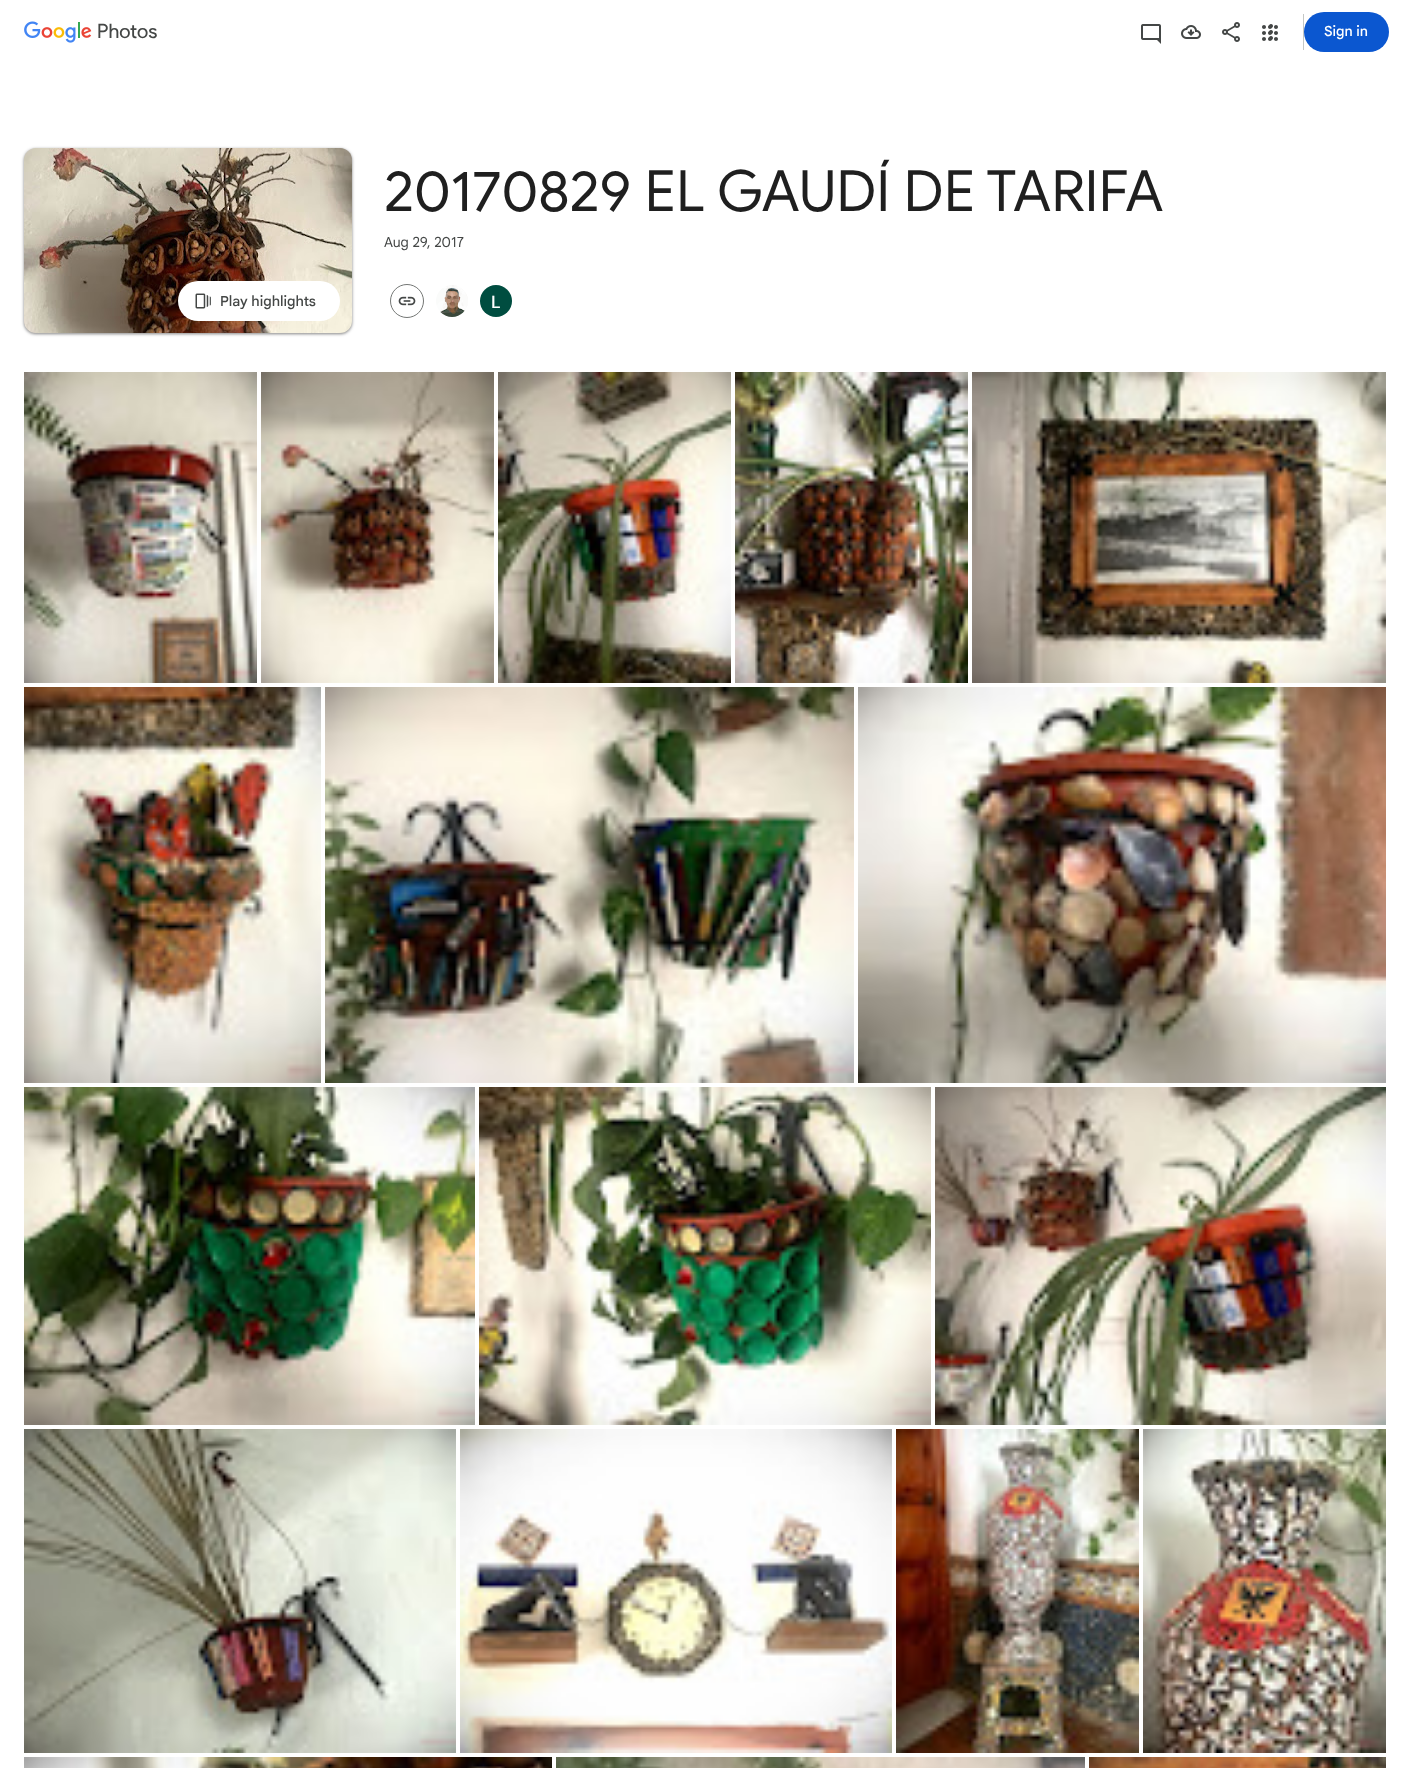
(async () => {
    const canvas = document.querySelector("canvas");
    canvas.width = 1425;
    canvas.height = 1768;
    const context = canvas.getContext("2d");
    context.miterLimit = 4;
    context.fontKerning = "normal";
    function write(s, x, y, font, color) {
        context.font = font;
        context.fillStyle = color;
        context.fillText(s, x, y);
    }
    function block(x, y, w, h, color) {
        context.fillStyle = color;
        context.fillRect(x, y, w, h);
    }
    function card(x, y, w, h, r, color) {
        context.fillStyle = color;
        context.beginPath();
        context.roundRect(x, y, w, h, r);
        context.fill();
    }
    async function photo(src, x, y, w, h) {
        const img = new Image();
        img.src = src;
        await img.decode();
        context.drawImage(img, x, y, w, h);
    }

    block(0, 0, 1425, 1768, "rgb(255, 255, 255)");
    await photo("media/1.png", 24, 21, 68, 22);
    write("Photos", 97, 38, "20px Product Sans", "rgb(68, 71, 70)");
    await photo("media/2.png", 1141, 24, 20, 20);
    await photo("media/3.png", 1181, 25, 20, 14);
    await photo("media/4.png", 1222, 22, 18, 20);
    await photo("media/5.png", 1269, 24, 4, 16);
    block(1303, 14, 1, 36, "rgb(196, 199, 197)");
    write("20170829 EL GAUDÍ DE TARIFA", 384, 211, "57px Google Sans", "rgb(31, 31, 31)");
    write("Aug 29, 2017", 384, 247, "14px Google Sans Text", "rgb(68, 71, 70)");
    context.beginPath();
    context.arc(407, 301, 16.5, 0, Math.PI * 2);
    context.strokeStyle = "rgb(116, 119, 117)";
    context.stroke();
    await photo("media/6.png", 398, 296, 18, 10);
    await photo("media/7.png", 436, 285, 32, 32);
    await photo("media/8.png", 480, 285, 32, 32);
    context.fillStyle = "rgba(0, 0, 0, 0.15)";
    context.filter = "blur(1.5px)";
    context.beginPath();
    context.roundRect(23, 148, 330, 187, 13);
    context.fill();
    context.filter = "none";
    context.fillStyle = "rgba(0, 0, 0, 0.3)";
    context.filter = "blur(1px)";
    context.beginPath();
    context.roundRect(24, 149, 328, 185, 12);
    context.fill();
    context.filter = "none";
    await photo("media/9.png", 24, 148, 328, 185);
    card(178, 281, 162, 40, 20, "rgb(255, 255, 255)");
    await photo("media/10.png", 195, 293, 16, 16);
    write("Play highlights", 220, 306, "500 14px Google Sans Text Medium", "rgb(68, 71, 70)");
    await photo("media/11.png", 24, 372, 233, 311);
    await photo("media/12.png", 261, 372, 233, 311);
    await photo("media/13.png", 498, 372, 233, 311);
    await photo("media/14.png", 735, 372, 233, 311);
    await photo("media/15.png", 972, 372, 414, 311);
    await photo("media/16.png", 24, 687, 297, 396);
    await photo("media/17.png", 325, 687, 529, 396);
    await photo("media/18.png", 858, 687, 528, 396);
    await photo("media/19.png", 24, 1087, 451, 338);
    await photo("media/20.png", 479, 1087, 452, 338);
    await photo("media/21.png", 935, 1087, 451, 338);
    await photo("media/22.png", 24, 1429, 432, 324);
    await photo("media/23.png", 460, 1429, 432, 324);
    await photo("media/24.png", 896, 1429, 243, 324);
    await photo("media/25.png", 1143, 1429, 243, 324);
    await photo("media/26.png", 24, 1757, 528, 11);
    await photo("media/27.png", 556, 1757, 529, 11);
    await photo("media/28.png", 1089, 1757, 297, 11);
    await photo("media/29.png", 1262, 25, 16, 16);
    card(1304, 12, 85, 40, 20, "rgb(11, 87, 208)");
    write("Sign in", 1324, 36, "500 14px Google Sans Text Medium", "rgb(255, 255, 255)");
})();
